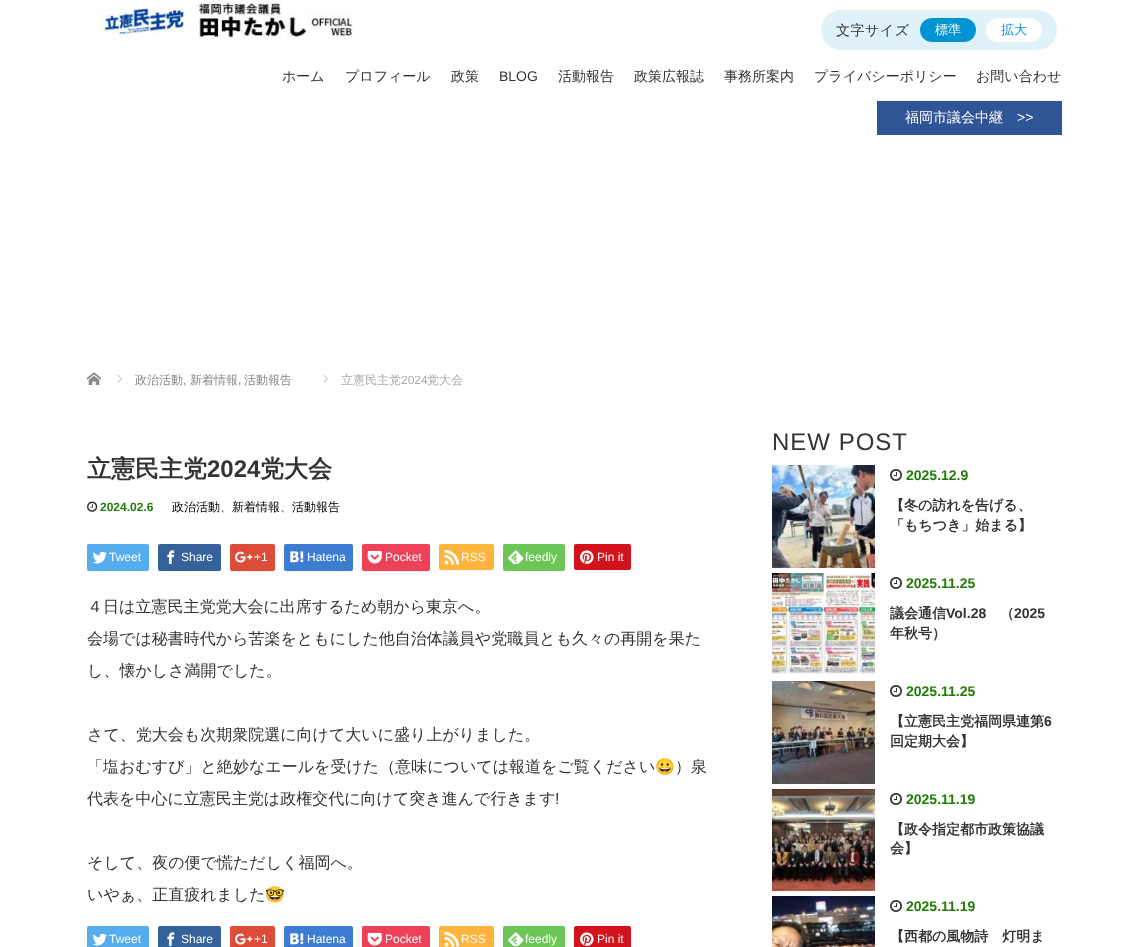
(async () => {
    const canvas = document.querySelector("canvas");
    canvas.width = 1143;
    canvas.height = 947;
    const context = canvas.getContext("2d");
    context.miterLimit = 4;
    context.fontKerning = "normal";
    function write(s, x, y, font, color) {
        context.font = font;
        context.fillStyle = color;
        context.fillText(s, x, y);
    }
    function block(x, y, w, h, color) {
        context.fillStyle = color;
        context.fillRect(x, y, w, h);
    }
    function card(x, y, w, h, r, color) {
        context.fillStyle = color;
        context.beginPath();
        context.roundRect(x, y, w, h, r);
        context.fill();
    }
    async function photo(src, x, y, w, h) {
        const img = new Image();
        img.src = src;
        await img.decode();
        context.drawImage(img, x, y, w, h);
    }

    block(0, 0, 1143, 947, "rgb(255, 255, 255)");
    card(821, 10, 236, 40, 20, "rgb(223, 242, 249)");
    context.letterSpacing = "0.5px";
    write("文字サイズ", 836, 35, "500 14px WenQuanYi Zen Hei", "rgb(51, 51, 51)");
    card(920, 18, 56, 24, 12, "rgb(0, 148, 210)");
    context.letterSpacing = "0px";
    write("標準", 935, 34, "500 13px WenQuanYi Zen Hei", "rgb(255, 255, 255)");
    card(986, 18, 56, 24, 12, "rgb(255, 255, 255)");
    write("拡大", 1001, 34, "500 13px WenQuanYi Zen Hei", "rgb(0, 148, 210)");
    await photo("media/1.png", 100, 1, 253, 38);
    write("ホーム", 282, 81, "500 14px WenQuanYi Zen Hei", "rgb(51, 51, 51)");
    write("プロフィール", 345, 81, "500 14px WenQuanYi Zen Hei", "rgb(51, 51, 51)");
    write("政策", 451, 81, "500 14px WenQuanYi Zen Hei", "rgb(51, 51, 51)");
    write("BLOG", 499, 81, "14px Liberation Sans", "rgb(51, 51, 51)");
    write("活動報告", 558, 81, "500 14px WenQuanYi Zen Hei", "rgb(51, 51, 51)");
    write("政策広報誌", 634, 81, "500 14px WenQuanYi Zen Hei", "rgb(51, 51, 51)");
    write("事務所案内", 724, 81, "500 14px WenQuanYi Zen Hei", "rgb(51, 51, 51)");
    write("プライバシーポリシー", 814, 81, "500 14px WenQuanYi Zen Hei", "rgb(51, 51, 51)");
    write("お問い合わせ", 976, 81, "500 14px WenQuanYi Zen Hei", "rgb(51, 51, 51)");
    block(877, 101, 185, 34, "rgb(48, 85, 150)");
    write("福岡市議会中継", 905, 122, "500 14px WenQuanYi Zen Hei", "rgb(255, 255, 255)");
    write(">>", 1017, 122, "14px Liberation Sans", "rgb(255, 255, 255)");
    await photo("media/2.png", 87, 372, 14, 13);
    await photo("media/3.png", 117, 375, 5, 8);
    write("政治活動", 135, 384, "500 12px WenQuanYi Zen Hei", "rgb(136, 136, 136)");
    write("新着情報", 190, 384, "500 12px WenQuanYi Zen Hei", "rgb(136, 136, 136)");
    write("活動報告", 244, 384, "500 12px WenQuanYi Zen Hei", "rgb(136, 136, 136)");
    write(",", 183, 384, "12px Liberation Sans", "rgb(136, 136, 136)");
    write(",", 238, 384, "12px Liberation Sans", "rgb(136, 136, 136)");
    await photo("media/3.png", 323, 375, 5, 8);
    write("立憲民主党", 341, 384, "500 12px WenQuanYi Zen Hei", "rgb(170, 170, 170)");
    write("2024", 401, 384, "12px Liberation Sans", "rgb(170, 170, 170)");
    write("党大会", 427, 384, "500 12px WenQuanYi Zen Hei", "rgb(170, 170, 170)");
    write("立憲民主党", 87, 477, "bold 24px WenQuanYi Zen Hei", "rgb(51, 51, 51)");
    write("2024", 207, 477, "bold 24px Liberation Sans", "rgb(51, 51, 51)");
    write("党大会", 260, 477, "bold 24px WenQuanYi Zen Hei", "rgb(51, 51, 51)");
    await photo("media/4.png", 87, 501, 11, 11);
    write("2024.02.6", 100, 511, "bold 12px Liberation Sans", "rgb(32, 125, 6)");
    write("政治活動", 172, 511, "500 12px WenQuanYi Zen Hei", "rgb(0, 0, 0)");
    write("、", 220, 511, "500 12px WenQuanYi Zen Hei", "rgb(51, 51, 51)");
    write("新着情報", 232, 511, "500 12px WenQuanYi Zen Hei", "rgb(0, 0, 0)");
    write("、", 280, 511, "500 12px WenQuanYi Zen Hei", "rgb(51, 51, 51)");
    write("活動報告", 292, 511, "500 12px WenQuanYi Zen Hei", "rgb(0, 0, 0)");
    context.fillStyle = "rgb(247, 247, 247)";
    context.beginPath();
    context.moveTo(87, 569);
    context.bezierCurveTo(87, 575, 95, 572, 99, 572);
    context.lineTo(137, 572);
    context.bezierCurveTo(141, 572, 149, 575, 149, 569);
    context.lineTo(148, 571);
    context.lineTo(99, 571);
    context.bezierCurveTo(95, 571, 87, 573, 87, 569);
    context.closePath();
    context.fill();
    card(87, 544, 62, 27, 2, "rgb(85, 172, 238)");
    await photo("media/5.png", 92, 551, 15, 13);
    write("Tweet", 109, 561, "12px Liberation Sans", "rgb(255, 255, 255)");
    context.fillStyle = "rgb(247, 247, 247)";
    context.beginPath();
    context.moveTo(158, 569);
    context.bezierCurveTo(158, 575, 166, 572, 170, 572);
    context.lineTo(209, 572);
    context.bezierCurveTo(213, 572, 221, 575, 221, 569);
    context.lineTo(220, 571);
    context.lineTo(170, 571);
    context.bezierCurveTo(166, 571, 158, 573, 158, 569);
    context.closePath();
    context.fill();
    card(158, 544, 63, 27, 2, "rgb(53, 98, 154)");
    await photo("media/6.png", 167, 550, 8, 14);
    write("Share", 181, 561, "12px Liberation Sans", "rgb(255, 255, 255)");
    context.fillStyle = "rgb(247, 247, 247)";
    context.beginPath();
    context.moveTo(230, 569);
    context.bezierCurveTo(230, 574, 235, 572, 239, 572);
    context.lineTo(266, 572);
    context.bezierCurveTo(270, 572, 275, 574, 275, 569);
    context.bezierCurveTo(275, 570, 274, 571, 273, 571);
    context.lineTo(232, 571);
    context.bezierCurveTo(231, 571, 230, 570, 230, 569);
    context.closePath();
    context.fill();
    card(230, 544, 45, 27, 2, "rgb(221, 75, 57)");
    await photo("media/7.png", 235, 551, 18, 12);
    write("+1", 254, 561, "12px Liberation Sans", "rgb(255, 255, 255)");
    context.fillStyle = "rgb(247, 247, 247)";
    context.beginPath();
    context.moveTo(284, 569);
    context.bezierCurveTo(284, 575, 293, 572, 297, 572);
    context.lineTo(340, 572);
    context.bezierCurveTo(344, 572, 353, 575, 353, 569);
    context.bezierCurveTo(353, 570, 352, 571, 351, 571);
    context.lineTo(285, 571);
    context.closePath();
    context.fill();
    card(284, 544, 69, 27, 2, "rgb(60, 125, 209)");
    await photo("media/8.png", 290, 551, 14, 12);
    write("Hatena", 307, 561, "12px Liberation Sans", "rgb(255, 255, 255)");
    context.fillStyle = "rgb(247, 247, 247)";
    context.beginPath();
    context.moveTo(362, 569);
    context.bezierCurveTo(362, 575, 371, 572, 375, 572);
    context.lineTo(417, 572);
    context.bezierCurveTo(421, 572, 430, 575, 430, 569);
    context.bezierCurveTo(430, 570, 429, 571, 428, 571);
    context.lineTo(363, 571);
    context.closePath();
    context.fill();
    card(362, 544, 68, 27, 2, "rgb(238, 64, 86)");
    await photo("media/9.png", 367, 550, 15, 14);
    write("Pocket", 385, 561, "12px Liberation Sans", "rgb(255, 255, 255)");
    context.fillStyle = "rgb(247, 247, 247)";
    context.beginPath();
    context.moveTo(439, 568);
    context.bezierCurveTo(439, 573, 446, 571, 450, 571);
    context.lineTo(484, 571);
    context.bezierCurveTo(487, 571, 494, 573, 494, 568);
    context.lineTo(493, 570);
    context.lineTo(440, 570);
    context.closePath();
    context.fill();
    card(439, 544, 55, 26, 2, "rgb(255, 181, 60)");
    await photo("media/10.png", 444, 549, 16, 16);
    write("RSS", 461, 561, "12px Liberation Sans", "rgb(255, 255, 255)");
    context.fillStyle = "rgb(247, 247, 247)";
    context.beginPath();
    context.moveTo(503, 569);
    context.bezierCurveTo(503, 575, 511, 572, 515, 572);
    context.lineTo(553, 572);
    context.bezierCurveTo(557, 572, 565, 575, 565, 569);
    context.bezierCurveTo(565, 573, 557, 571, 553, 571);
    context.lineTo(504, 571);
    context.closePath();
    context.fill();
    card(503, 544, 62, 27, 2, "rgb(108, 198, 85)");
    await photo("media/11.png", 508, 550, 16, 14);
    write("feedly", 525, 561, "12px Liberation Sans", "rgb(255, 255, 255)");
    context.fillStyle = "rgb(247, 247, 247)";
    context.beginPath();
    context.moveTo(574, 568);
    context.bezierCurveTo(574, 573, 581, 571, 585, 571);
    context.lineTo(620, 571);
    context.bezierCurveTo(624, 571, 631, 573, 631, 568);
    context.lineTo(630, 570);
    context.lineTo(585, 570);
    context.bezierCurveTo(581, 570, 574, 572, 574, 568);
    context.closePath();
    context.fill();
    card(574, 544, 57, 26, 2, "rgb(212, 18, 28)");
    await photo("media/12.png", 580, 550, 14, 14);
    write("Pin it", 597, 561, "12px Liberation Sans", "rgb(255, 255, 255)");
    write("４日は立憲民主党党大会に出席するため朝から東京へ。", 87, 612, "500 16px WenQuanYi Zen Hei", "rgb(51, 51, 51)");
    write("会場では秘書時代から苦楽をともにした他自治体議員や党職員とも久々の再開を果た", 87, 644, "500 16px WenQuanYi Zen Hei", "rgb(51, 51, 51)");
    write("し、懐かしさ満開でした。", 87, 676, "500 16px WenQuanYi Zen Hei", "rgb(51, 51, 51)");
    write("さて、党大会も次期衆院選に向けて大いに盛り上がりました。", 87, 740, "500 16px WenQuanYi Zen Hei", "rgb(51, 51, 51)");
    write("「塩おむすび」と絶妙なエールを受けた（意味については報道をご覧ください", 87, 772, "500 16px WenQuanYi Zen Hei", "rgb(51, 51, 51)");
    write("😀", 655, 772, "16px Noto Color Emoji", "rgb(51, 51, 51)");
    write("）泉", 675, 772, "500 16px WenQuanYi Zen Hei", "rgb(51, 51, 51)");
    write("代表を中心に立憲民主党は政権交代に向けて突き進んで行きます", 87, 804, "500 16px WenQuanYi Zen Hei", "rgb(51, 51, 51)");
    write("!", 555, 804, "16px Liberation Sans", "rgb(51, 51, 51)");
    write("そして、夜の便で慌ただしく福岡へ。", 87, 868, "500 16px WenQuanYi Zen Hei", "rgb(51, 51, 51)");
    write("いやぁ、正直疲れました", 87, 900, "500 16px WenQuanYi Zen Hei", "rgb(51, 51, 51)");
    write("🤓", 265, 900, "16px Noto Color Emoji", "rgb(51, 51, 51)");
    card(87, 926, 62, 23, 2, "rgb(85, 172, 238)");
    await photo("media/5.png", 92, 933, 15, 13);
    write("Tweet", 109, 943, "12px Liberation Sans", "rgb(255, 255, 255)");
    card(158, 926, 63, 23, 2, "rgb(53, 98, 154)");
    await photo("media/6.png", 167, 932, 8, 14);
    write("Share", 181, 943, "12px Liberation Sans", "rgb(255, 255, 255)");
    card(230, 926, 45, 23, 2, "rgb(221, 75, 57)");
    await photo("media/7.png", 235, 933, 18, 12);
    write("+1", 254, 943, "12px Liberation Sans", "rgb(255, 255, 255)");
    card(284, 926, 69, 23, 2, "rgb(60, 125, 209)");
    await photo("media/8.png", 290, 933, 14, 12);
    write("Hatena", 307, 943, "12px Liberation Sans", "rgb(255, 255, 255)");
    card(362, 926, 68, 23, 2, "rgb(238, 64, 86)");
    await photo("media/9.png", 367, 932, 15, 14);
    write("Pocket", 385, 943, "12px Liberation Sans", "rgb(255, 255, 255)");
    card(439, 926, 55, 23, 2, "rgb(255, 181, 60)");
    await photo("media/10.png", 444, 931, 16, 16);
    write("RSS", 461, 943, "12px Liberation Sans", "rgb(255, 255, 255)");
    card(503, 926, 62, 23, 2, "rgb(108, 198, 85)");
    await photo("media/11.png", 508, 932, 16, 14);
    write("feedly", 525, 943, "12px Liberation Sans", "rgb(255, 255, 255)");
    card(574, 926, 57, 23, 2, "rgb(212, 18, 28)");
    await photo("media/12.png", 580, 932, 14, 14);
    write("Pin it", 597, 943, "12px Liberation Sans", "rgb(255, 255, 255)");
    context.letterSpacing = "1px";
    write("NEW POST", 772, 450, "24px Liberation Sans", "rgb(51, 51, 51)");
    await photo("media/13.png", 772, 465, 103, 103);
    await photo("media/14.png", 890, 469, 12, 12);
    context.letterSpacing = "0px";
    write("2025.12.9", 906, 480, "bold 14px Liberation Sans", "rgb(32, 125, 6)");
    write("【冬の訪れを告げる、", 890, 510, "bold 14px WenQuanYi Zen Hei", "rgb(51, 51, 51)");
    write("「もちつき」始まる】", 890, 530, "bold 14px WenQuanYi Zen Hei", "rgb(51, 51, 51)");
    await photo("media/15.png", 772, 573, 103, 103);
    await photo("media/14.png", 890, 577, 12, 12);
    write("2025.11.25", 906, 588, "bold 14px Liberation Sans", "rgb(32, 125, 6)");
    write("議会通信", 890, 618, "bold 14px WenQuanYi Zen Hei", "rgb(51, 51, 51)");
    write("Vol.28", 946, 618, "bold 14px Liberation Sans", "rgb(51, 51, 51)");
    write("（", 1000, 618, "bold 14px WenQuanYi Zen Hei", "rgb(51, 51, 51)");
    write("2025", 1014, 618, "bold 14px Liberation Sans", "rgb(51, 51, 51)");
    write("年秋号）", 890, 638, "bold 14px WenQuanYi Zen Hei", "rgb(51, 51, 51)");
    await photo("media/16.png", 772, 681, 103, 103);
    await photo("media/14.png", 890, 685, 12, 12);
    write("2025.11.25", 906, 696, "bold 14px Liberation Sans", "rgb(32, 125, 6)");
    write("【立憲民主党福岡県連第", 890, 726, "bold 14px WenQuanYi Zen Hei", "rgb(51, 51, 51)");
    write("6", 1044, 726, "bold 14px Liberation Sans", "rgb(51, 51, 51)");
    write("回定期大会】", 890, 746, "bold 14px WenQuanYi Zen Hei", "rgb(51, 51, 51)");
    await photo("media/17.png", 772, 789, 103, 102);
    await photo("media/14.png", 890, 793, 12, 12);
    write("2025.11.19", 906, 804, "bold 14px Liberation Sans", "rgb(32, 125, 6)");
    write("【政令指定都市政策協議", 890, 834, "bold 14px WenQuanYi Zen Hei", "rgb(51, 51, 51)");
    write("会】", 890, 853, "bold 14px WenQuanYi Zen Hei", "rgb(51, 51, 51)");
    await photo("media/18.png", 772, 896, 103, 51);
    await photo("media/14.png", 890, 900, 12, 12);
    write("2025.11.19", 906, 911, "bold 14px Liberation Sans", "rgb(32, 125, 6)");
    write("【西都の風物詩　灯明ま", 890, 941, "bold 14px WenQuanYi Zen Hei", "rgb(51, 51, 51)");
})();
